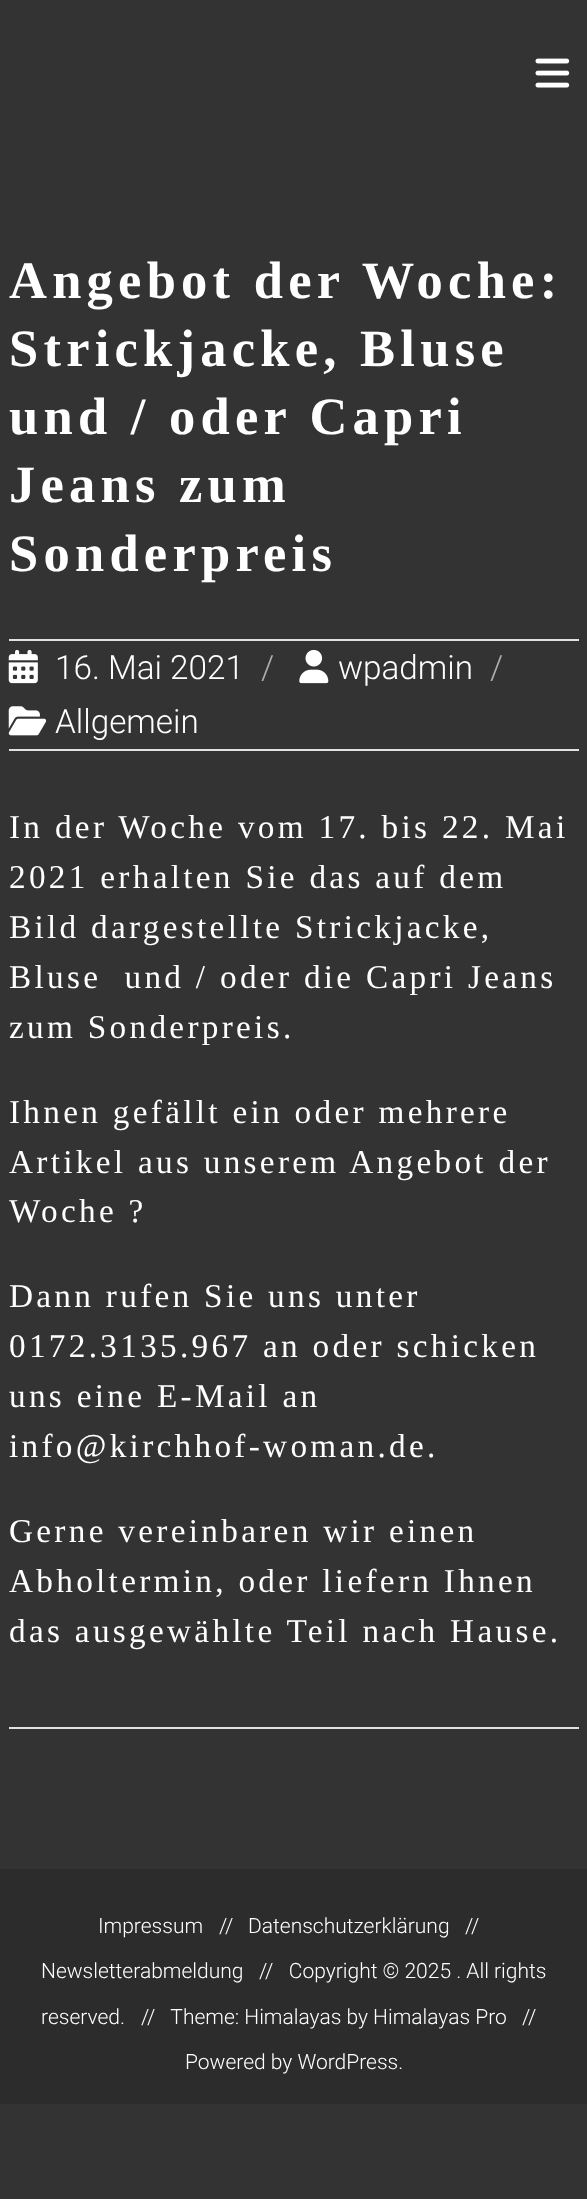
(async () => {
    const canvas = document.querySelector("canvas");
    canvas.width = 587;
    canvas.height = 2199;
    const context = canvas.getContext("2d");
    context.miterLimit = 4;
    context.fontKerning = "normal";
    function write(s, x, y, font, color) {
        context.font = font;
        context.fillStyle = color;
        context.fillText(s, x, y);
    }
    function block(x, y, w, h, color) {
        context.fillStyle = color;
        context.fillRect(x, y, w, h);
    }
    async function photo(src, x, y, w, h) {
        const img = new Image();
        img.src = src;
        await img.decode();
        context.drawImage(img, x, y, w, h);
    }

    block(0, 0, 587, 2199, "rgb(51, 51, 51)");
    await photo("media/1.png", 535, 58, 35, 30);
    block(9, 1727, 570, 2, "rgb(225, 225, 225)");
    context.letterSpacing = "5.25px";
    write("Angebot der Woche:", 9, 298, "bold 52.5px Liberation Serif", "rgb(255, 255, 255)");
    write("Strickjacke, Bluse", 9, 366, "bold 52.5px Liberation Serif", "rgb(255, 255, 255)");
    write("und / oder Capri", 9, 434, "bold 52.5px Liberation Serif", "rgb(255, 255, 255)");
    write("Jeans zum", 9, 502, "bold 52.5px Liberation Serif", "rgb(255, 255, 255)");
    write("Sonderpreis", 9, 571, "bold 52.5px Liberation Serif", "rgb(255, 255, 255)");
    block(9, 639, 570, 2, "rgb(225, 225, 225)");
    block(9, 749, 570, 2, "rgb(225, 225, 225)");
    await photo("media/2.png", 8, 649, 30, 35);
    context.letterSpacing = "0px";
    write("16. Mai 2021", 55, 679, "300 33.25px Roboto", "rgb(255, 255, 255)");
    write("/", 261, 679, "300 33.25px Roboto", "rgb(174, 174, 174)");
    await photo("media/3.png", 299, 649, 30, 35);
    write("wpadmin", 338, 679, "300 33.25px Roboto", "rgb(255, 255, 255)");
    write("/", 490, 679, "300 33.25px Roboto", "rgb(174, 174, 174)");
    await photo("media/4.png", 8, 706, 39, 30);
    write("Allgemein", 55, 733, "300 33.25px Roboto", "rgb(255, 255, 255)");
    context.letterSpacing = "3.3px";
    write("In der Woche vom 17. bis 22. Mai", 9, 838, "33.25px Liberation Serif", "rgb(255, 255, 255)");
    write("2021 erhalten Sie das auf dem", 9, 888, "33.25px Liberation Serif", "rgb(255, 255, 255)");
    write("Bild dargestellte Strickjacke,", 9, 938, "33.25px Liberation Serif", "rgb(255, 255, 255)");
    write("Bluse  und / oder die Capri Jeans", 9, 988, "33.25px Liberation Serif", "rgb(255, 255, 255)");
    write("zum Sonderpreis.", 9, 1038, "33.25px Liberation Serif", "rgb(255, 255, 255)");
    write("Ihnen gefällt ein oder mehrere", 9, 1123, "33.25px Liberation Serif", "rgb(255, 255, 255)");
    write("Artikel aus unserem Angebot der", 9, 1173, "33.25px Liberation Serif", "rgb(255, 255, 255)");
    write("Woche ?", 9, 1222, "33.25px Liberation Serif", "rgb(255, 255, 255)");
    write("Dann rufen Sie uns unter", 9, 1307, "33.25px Liberation Serif", "rgb(255, 255, 255)");
    write("0172.3135.967 an oder schicken", 9, 1357, "33.25px Liberation Serif", "rgb(255, 255, 255)");
    write("uns eine E-Mail an", 9, 1407, "33.25px Liberation Serif", "rgb(255, 255, 255)");
    write("info@kirchhof-woman.de.", 9, 1457, "33.25px Liberation Serif", "rgb(255, 255, 255)");
    write("Gerne vereinbaren wir einen", 9, 1542, "33.25px Liberation Serif", "rgb(255, 255, 255)");
    write("Abholtermin, oder liefern Ihnen", 9, 1592, "33.25px Liberation Serif", "rgb(255, 255, 255)");
    write("das ausgewählte Teil nach Hause.", 9, 1642, "33.25px Liberation Serif", "rgb(255, 255, 255)");
    block(0, 1869, 587, 235, "rgb(44, 44, 44)");
    context.letterSpacing = "0px";
    write("Impressum", 98, 1933, "300 21px Roboto", "rgb(255, 255, 255)");
    write("//", 219, 1933, "300 21px Roboto", "rgb(255, 255, 255)");
    write("Datenschutzerklärung", 248, 1933, "300 21px Roboto", "rgb(255, 255, 255)");
    write("//", 465, 1933, "300 21px Roboto", "rgb(255, 255, 255)");
    write("Newsletterabmeldung", 41, 1978, "300 21px Roboto", "rgb(255, 255, 255)");
    write("//   Copyright © 2025 . All rights", 259, 1978, "300 21px Roboto", "rgb(255, 255, 255)");
    write("reserved.", 41, 2024, "300 21px Roboto", "rgb(255, 255, 255)");
    write("//   Theme: Himalayas by Himalayas Pro", 141, 2024, "300 21px Roboto", "rgb(255, 255, 255)");
    write("//", 522, 2024, "300 21px Roboto", "rgb(255, 255, 255)");
    write("Powered by WordPress.", 185, 2069, "300 21px Roboto", "rgb(255, 255, 255)");
})();
